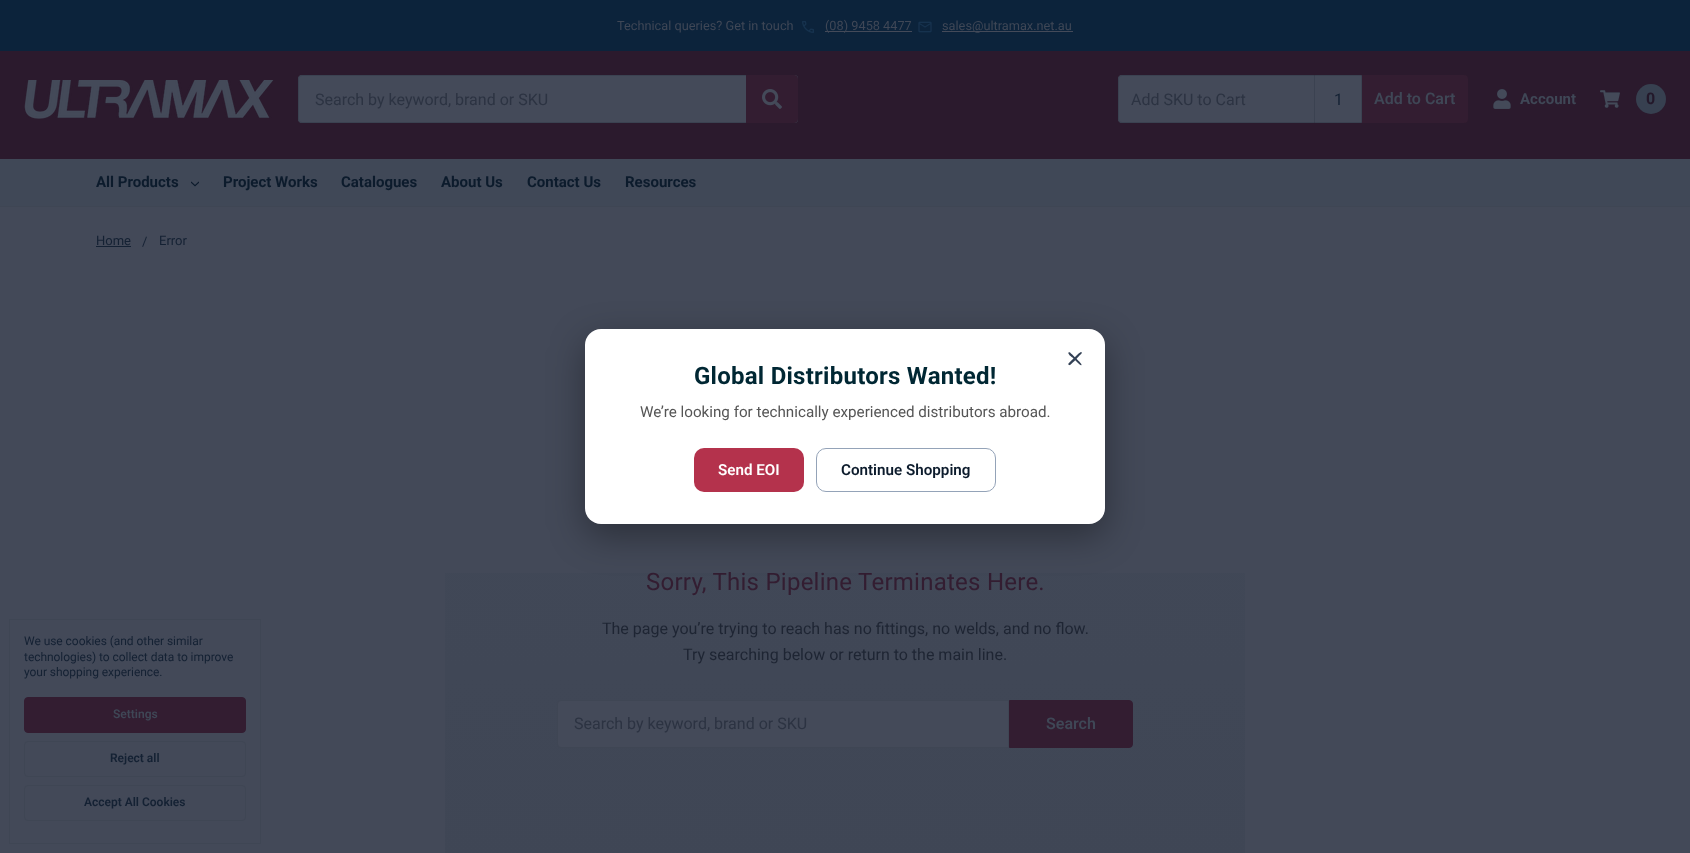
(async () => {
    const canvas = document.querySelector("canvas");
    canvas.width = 1690;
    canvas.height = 853;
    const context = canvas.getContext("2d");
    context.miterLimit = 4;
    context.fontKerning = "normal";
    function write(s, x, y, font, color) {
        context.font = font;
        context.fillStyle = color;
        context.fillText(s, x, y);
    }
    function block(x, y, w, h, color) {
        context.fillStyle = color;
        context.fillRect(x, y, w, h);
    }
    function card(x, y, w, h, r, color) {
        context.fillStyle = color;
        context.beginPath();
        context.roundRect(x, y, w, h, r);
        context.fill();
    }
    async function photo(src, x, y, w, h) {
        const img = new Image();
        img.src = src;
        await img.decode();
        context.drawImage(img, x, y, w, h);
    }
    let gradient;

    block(0, 0, 1690, 853, "rgb(67, 73, 88)");
    block(0, 0, 1690, 51, "rgb(12, 35, 59)");
    write("Technical queries? Get in touch", 617, 30, "12.75px Roboto", "rgb(63, 71, 86)");
    await photo("media/1.png", 802, 21, 12, 12);
    block(825, 31, 87, 1, "rgb(68, 74, 89)");
    write("(08) 9458 4477", 825, 30, "12.75px Roboto", "rgb(63, 71, 86)");
    await photo("media/2.png", 918, 21, 14, 12);
    block(942, 31, 131, 1, "rgb(68, 74, 89)");
    write("sales@ultramax.net.au", 942, 30, "12.75px Roboto", "rgb(63, 71, 86)");
    block(0, 51, 1690, 108, "rgb(43, 26, 45)");
    block(0, 206, 1690, 1, "rgb(63, 70, 84)");
    await photo("media/3.png", 24, 80, 250, 39);
    card(298, 75, 500, 48, 4, "rgb(68, 74, 89)");
    context.fillStyle = "rgb(59, 66, 81)";
    context.beginPath();
    context.moveTo(302, 75);
    context.bezierCurveTo(300, 75, 298, 77, 298, 79);
    context.lineTo(298, 119);
    context.bezierCurveTo(298, 121, 300, 123, 302, 123);
    context.lineTo(794, 123);
    context.bezierCurveTo(795, 123, 796, 123, 797, 122);
    context.lineTo(302, 122);
    context.bezierCurveTo(300, 122, 299, 121, 299, 119);
    context.lineTo(299, 79);
    context.bezierCurveTo(299, 77, 300, 76, 302, 76);
    context.lineTo(797, 76);
    context.lineTo(794, 75);
    context.closePath();
    context.moveTo(797, 76);
    context.lineTo(797, 122);
    context.bezierCurveTo(798, 121, 798, 120, 798, 119);
    context.lineTo(798, 79);
    context.bezierCurveTo(798, 78, 798, 77, 797, 76);
    context.closePath();
    context.fill("evenodd");
    write("Search by keyword, brand or SKU", 315, 105, "16px Roboto", "rgb(44, 51, 66)");
    context.fillStyle = "rgb(51, 29, 49)";
    context.beginPath();
    context.roundRect(746, 75, 52, 48, [0, 4, 4, 0]);
    context.fill();
    await photo("media/4.png", 762, 89, 20, 20);
    context.fillStyle = "rgb(68, 74, 89)";
    context.beginPath();
    context.roundRect(1118, 75, 196, 48, [4, 0, 0, 4]);
    context.fill();
    context.fillStyle = "rgb(59, 66, 81)";
    context.beginPath();
    context.moveTo(1122, 75);
    context.lineTo(1314, 75);
    context.lineTo(1314, 123);
    context.lineTo(1122, 123);
    context.bezierCurveTo(1120, 123, 1118, 121, 1118, 119);
    context.lineTo(1118, 79);
    context.bezierCurveTo(1118, 77, 1120, 75, 1122, 75);
    context.closePath();
    context.moveTo(1122, 76);
    context.lineTo(1314, 76);
    context.lineTo(1314, 122);
    context.lineTo(1122, 122);
    context.bezierCurveTo(1120, 122, 1119, 121, 1119, 119);
    context.lineTo(1119, 79);
    context.bezierCurveTo(1119, 77, 1120, 76, 1122, 76);
    context.closePath();
    context.fill("evenodd");
    write("Add SKU to Cart", 1131, 105, "16px Roboto", "rgb(44, 51, 66)");
    context.fillStyle = "rgb(68, 74, 89)";
    context.beginPath();
    context.rect(1314.5, 75.5, 47, 47);
    context.fill();
    context.strokeStyle = "rgb(59, 66, 81)";
    context.stroke();
    write("1", 1334, 105, "16px Roboto", "rgb(20, 33, 51)");
    context.fillStyle = "rgb(51, 29, 49)";
    context.beginPath();
    context.roundRect(1362, 75, 106, 48, [0, 4, 4, 0]);
    context.fill();
    write("Add to Cart", 1374, 104, "600 16px Roboto", "rgb(63, 71, 86)");
    await photo("media/5.png", 1493, 89, 18, 20);
    write("Account", 1520, 104, "bold 15px Roboto", "rgb(63, 71, 86)");
    await photo("media/6.png", 1600, 90, 20, 18);
    context.fillStyle = "rgb(55, 64, 80)";
    context.beginPath();
    context.arc(1651, 99, 15, 0, Math.PI * 2);
    context.fill();
    write("0", 1646, 104, "bold 16px Roboto", "rgb(35, 24, 42)");
    block(0, 159, 1690, 47, "rgb(64, 72, 87)");
    write("All Products", 96, 187, "bold 15px Roboto", "rgb(12, 27, 44)");
    await photo("media/7.png", 191, 181, 8, 6);
    write("Project Works", 223, 187, "bold 15px Roboto", "rgb(12, 27, 44)");
    write("Catalogues", 341, 187, "bold 15px Roboto", "rgb(12, 27, 44)");
    write("About Us", 441, 187, "bold 15px Roboto", "rgb(12, 27, 44)");
    write("Contact Us", 527, 187, "bold 15px Roboto", "rgb(12, 27, 44)");
    write("Resources", 625, 187, "bold 15px Roboto", "rgb(12, 27, 44)");
    write("Home", 96, 245, "13px Roboto", "rgb(20, 33, 51)");
    block(96, 246, 35, 1, "rgb(20, 33, 51)");
    write("/", 142, 246, "13px Roboto", "rgb(20, 33, 51)");
    write("Error", 159, 245, "13px Roboto", "rgb(20, 33, 51)");
    gradient = context.createLinearGradient(845, 274, 845, 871);
    gradient.addColorStop(0, "rgb(66, 73, 88)");
    gradient.addColorStop(1, "rgb(63, 70, 85)");
    context.fillStyle = gradient;
    context.fillRect(445, 573, 800, 280);
    context.letterSpacing = "0.25px";
    write("Sorry, This Pipeline Terminates Here.", 646, 590, "24px Roboto", "rgb(51, 29, 49)");
    context.letterSpacing = "0px";
    write("The page you’re trying to reach has no fittings, no welds, and no flow.", 602, 634, "16px Roboto", "rgb(30, 37, 51)");
    write("Try searching below or return to the main line.", 683, 660, "16px Roboto", "rgb(30, 37, 51)");
    context.fillStyle = "rgb(68, 74, 89)";
    context.beginPath();
    context.roundRect(557.5, 700.5, 451, 47, [3.5, 0, 0, 3.5]);
    context.fill();
    context.strokeStyle = "rgb(63, 70, 84)";
    context.stroke();
    write("Search by keyword, brand or SKU", 574, 729, "16px Roboto", "rgb(44, 51, 66)");
    context.fillStyle = "rgb(51, 29, 49)";
    context.beginPath();
    context.roundRect(1009.5, 700.5, 123, 47, [0, 3.5, 3.5, 0]);
    context.fill();
    context.strokeStyle = "rgb(51, 29, 49)";
    context.stroke();
    write("Search", 1046, 729, "600 16px Roboto", "rgb(63, 71, 86)");
    context.fillStyle = "rgba(0, 0, 0, 0.35)";
    context.filter = "blur(18px)";
    context.beginPath();
    context.roundRect(585, 341, 520, 195, 16);
    context.fill();
    context.filter = "none";
    card(585, 329, 520, 195, 16, "rgb(255, 255, 255)");
    context.fillStyle = "rgb(51, 65, 85)";
    context.beginPath();
    context.moveTo(1070, 352.5);
    context.bezierCurveTo(1071.5, 354, 1082, 363.5, 1081.5, 364.5);
    context.bezierCurveTo(1081.5, 366.5, 1079.5, 364.5, 1078, 363);
    context.lineTo(1072.5, 357.5);
    context.bezierCurveTo(1071.5, 357, 1067.5, 354, 1068.5, 352.5);
    context.bezierCurveTo(1069, 352, 1069.5, 352, 1070, 352.5);
    context.closePath();
    context.fill();
    context.beginPath();
    context.moveTo(1068.5, 363.5);
    context.bezierCurveTo(1070, 362, 1079.5, 352, 1081, 352);
    context.bezierCurveTo(1083, 352.5, 1081, 354.5, 1079.5, 355.5);
    context.lineTo(1074, 361.5);
    context.bezierCurveTo(1073, 362, 1070, 366, 1069, 365);
    context.bezierCurveTo(1068.5, 365, 1068, 364, 1068.5, 363.5);
    context.closePath();
    context.fill();
    context.letterSpacing = "0.25px";
    write("Global Distributors Wanted!", 694, 384, "bold 24px Roboto", "rgb(0, 39, 51)");
    context.letterSpacing = "0px";
    write("We’re looking for technically experienced distributors abroad.", 640, 417, "15.2px Roboto", "rgb(85, 85, 85)");
    card(694, 448, 110, 44, 10, "rgb(180, 50, 76)");
    write("Send EOI", 718, 475, "600 15.2px Roboto", "rgb(255, 255, 255)");
    context.beginPath();
    context.roundRect(816.5, 448.5, 179, 43, 9.5);
    context.strokeStyle = "rgb(148, 163, 184)";
    context.stroke();
    write("Continue Shopping", 841, 475, "600 15.2px Roboto", "rgb(12, 27, 44)");
    context.strokeStyle = "rgb(63, 70, 84)";
    context.strokeRect(9.5, 619.5, 251, 224);
    context.letterSpacing = "-0.05px";
    write("We use cookies (and other similar", 24, 645, "12px Roboto", "rgb(20, 33, 51)");
    write("technologies) to collect data to improve", 24, 661, "12px Roboto", "rgb(20, 33, 51)");
    write("your shopping experience.", 24, 676, "12px Roboto", "rgb(20, 33, 51)");
    context.fillStyle = "rgb(51, 29, 49)";
    context.beginPath();
    context.roundRect(24.5, 697.5, 221, 35, 3.5);
    context.fill();
    context.strokeStyle = "rgb(51, 29, 49)";
    context.stroke();
    context.letterSpacing = "0px";
    write("Settings", 113, 718, "600 12px Roboto", "rgb(63, 71, 86)");
    context.beginPath();
    context.roundRect(24.5, 741.5, 221, 35, 3.5);
    context.strokeStyle = "rgb(63, 70, 84)";
    context.stroke();
    write("Reject all", 110, 762, "600 12px Roboto", "rgb(20, 33, 51)");
    context.beginPath();
    context.roundRect(24.5, 785.5, 221, 35, 3.5);
    context.stroke();
    write("Accept All Cookies", 84, 806, "600 12px Roboto", "rgb(20, 33, 51)");
})();
